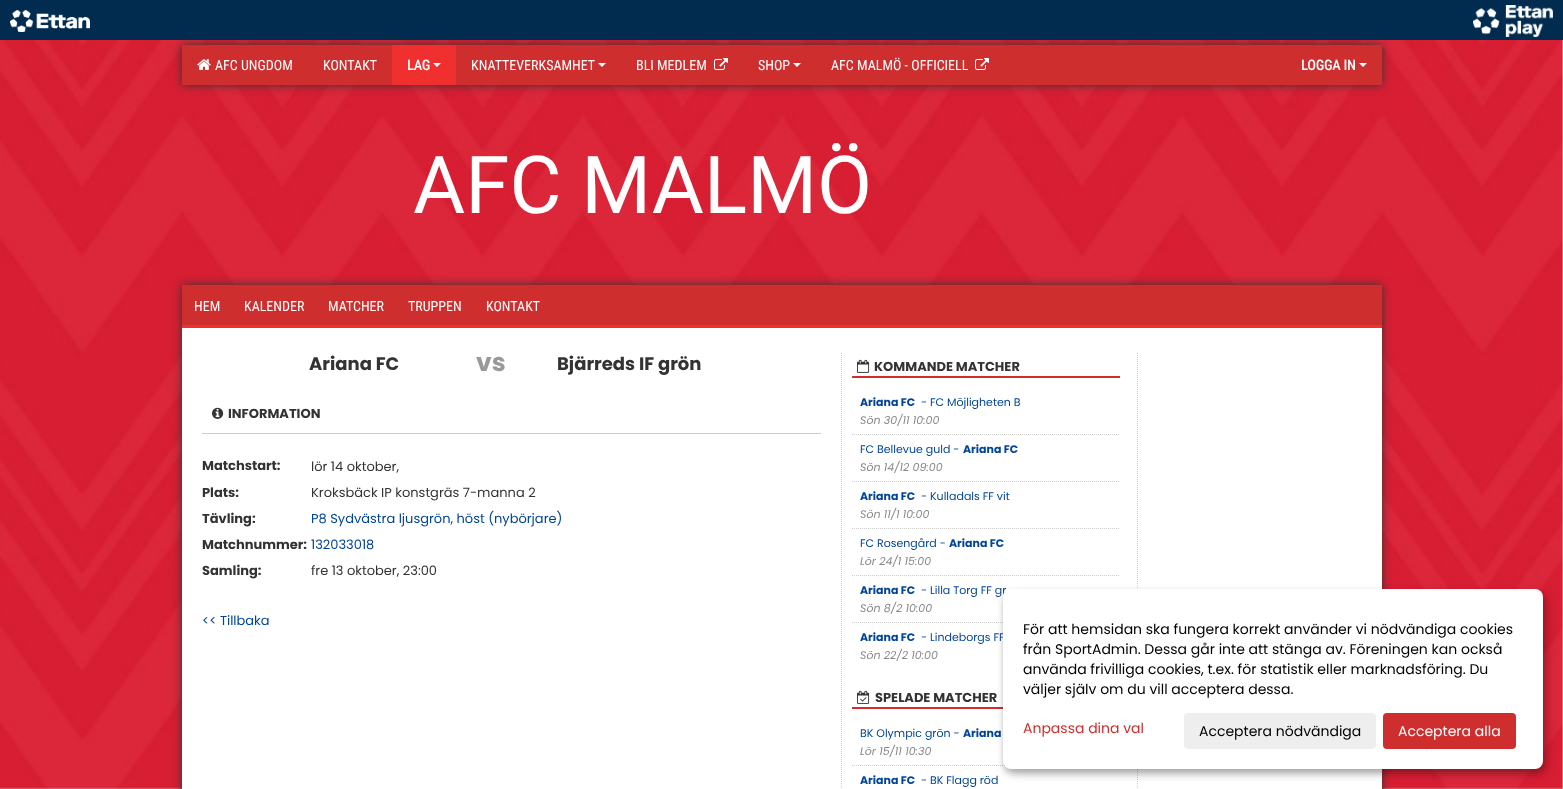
(async () => {
    const canvas = document.querySelector("canvas");
    canvas.width = 1563;
    canvas.height = 789;
    const context = canvas.getContext("2d");
    context.miterLimit = 4;
    context.fontKerning = "normal";
    function write(s, x, y, font, color) {
        context.font = font;
        context.fillStyle = color;
        context.fillText(s, x, y);
    }
    function block(x, y, w, h, color) {
        context.fillStyle = color;
        context.fillRect(x, y, w, h);
    }
    function card(x, y, w, h, r, color) {
        context.fillStyle = color;
        context.beginPath();
        context.roundRect(x, y, w, h, r);
        context.fill();
    }
    async function photo(src, x, y, w, h) {
        const img = new Image();
        img.src = src;
        await img.decode();
        context.drawImage(img, x, y, w, h);
    }

    block(0, 0, 1563, 789, "rgb(255, 255, 255)");
    await photo("media/1.png", 0, 40, 1563, 749);
    context.fillStyle = "rgb(51, 51, 51)";
    context.filter = "blur(5px)";
    context.beginPath();
    context.rect(182, 45, 1200, 40);
    context.fill();
    context.filter = "none";
    await photo("media/2.png", 0, 0, 1563, 40);
    block(182, 45, 1200, 40, "rgb(207, 46, 46)");
    await photo("media/3.png", 197, 59, 14, 11);
    write("AFC UNGDOM", 215, 70, "14px Roboto Condensed", "rgb(255, 255, 255)");
    write("KONTAKT", 323, 70, "14px Roboto Condensed", "rgb(255, 255, 255)");
    block(392, 45, 64, 40, "rgb(240, 47, 47)");
    write("LAG", 407, 70, "bold 14px Roboto Condensed", "rgb(255, 255, 255)");
    context.beginPath();
    context.moveTo(433, 63);
    context.lineTo(441, 63);
    context.lineTo(437, 67);
    context.closePath();
    context.fill();
    write("KNATTEVERKSAMHET", 471, 70, "14px Roboto Condensed", "rgb(255, 255, 255)");
    context.beginPath();
    context.moveTo(598, 63);
    context.lineTo(606, 63);
    context.lineTo(602, 67);
    context.closePath();
    context.fill();
    write("BLI MEDLEM", 636, 70, "14px Roboto Condensed", "rgb(255, 255, 255)");
    await photo("media/4.png", 714, 58, 14, 12);
    write("SHOP", 758, 70, "14px Roboto Condensed", "rgb(255, 255, 255)");
    context.beginPath();
    context.moveTo(793, 63);
    context.lineTo(801, 63);
    context.lineTo(797, 67);
    context.closePath();
    context.fill();
    write("AFC MALMÖ - OFFICIELL", 831, 70, "14px Roboto Condensed", "rgb(255, 255, 255)");
    await photo("media/4.png", 975, 58, 14, 12);
    write("LOGGA IN", 1301, 70, "bold 14px Roboto Condensed", "rgb(255, 255, 255)");
    context.beginPath();
    context.moveTo(1359, 63);
    context.lineTo(1367, 63);
    context.lineTo(1363, 67);
    context.closePath();
    context.fill();
    write("AFC MALMÖ", 413, 213, "80px Roboto", "rgb(255, 255, 255)");
    context.fillStyle = "rgb(51, 51, 51)";
    context.filter = "blur(5px)";
    context.beginPath();
    context.rect(182, 285, 1200, 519);
    context.fill();
    context.filter = "none";
    block(182, 328, 1200, 461, "rgb(255, 255, 255)");
    block(182, 285, 1200, 40, "rgb(207, 46, 46)");
    write("HEM", 194, 311, "14px Roboto Condensed", "rgb(255, 255, 255)");
    write("KALENDER", 244, 311, "14px Roboto Condensed", "rgb(255, 255, 255)");
    write("MATCHER", 328, 311, "14px Roboto Condensed", "rgb(255, 255, 255)");
    write("TRUPPEN", 408, 311, "14px Roboto Condensed", "rgb(255, 255, 255)");
    write("KONTAKT", 486, 311, "14px Roboto Condensed", "rgb(255, 255, 255)");
    block(182, 325, 1200, 3, "rgb(240, 47, 47)");
    write("Ariana FC", 309, 370, "bold 18px Poppins", "rgb(51, 51, 51)");
    write("vs", 476, 371, "bold 25px Poppins", "rgb(153, 153, 153)");
    write("Bjärreds IF grön", 557, 370, "bold 18px Poppins", "rgb(51, 51, 51)");
    block(202, 433, 619, 1, "rgb(204, 204, 204)");
    await photo("media/5.png", 212, 407, 12, 12);
    write("INFORMATION", 228, 418, "bold 13px Poppins", "rgb(51, 51, 51)");
    write("Matchstart:", 202, 470, "bold 13px Poppins", "rgb(51, 51, 51)");
    write("lör 14 oktober,", 311, 471, "13px Poppins", "rgb(51, 51, 51)");
    write("Plats:", 202, 497, "bold 13px Poppins", "rgb(51, 51, 51)");
    write("Kroksbäck IP konstgräs 7-manna 2", 311, 497, "13px Poppins", "rgb(51, 51, 51)");
    write("Tävling:", 202, 523, "bold 13px Poppins", "rgb(51, 51, 51)");
    write("P8 Sydvästra ljusgrön, höst (nybörjare)", 311, 523, "13px Poppins", "rgb(0, 68, 153)");
    write("Matchnummer:", 202, 549, "bold 13px Poppins", "rgb(51, 51, 51)");
    write("132033018", 311, 549, "13px Poppins", "rgb(0, 68, 153)");
    write("Samling:", 202, 575, "bold 13px Poppins", "rgb(51, 51, 51)");
    write("fre 13 oktober, 23:00", 311, 575, "13px Poppins", "rgb(51, 51, 51)");
    write("<< Tillbaka", 202, 625, "13px Poppins", "rgb(0, 68, 153)");
    context.beginPath();
    context.moveTo(841.5, 353);
    context.lineTo(841.5, 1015);
    context.strokeStyle = "rgb(204, 204, 204)";
    context.setLineDash([1, 1]);
    context.stroke();
    block(852, 376, 268, 2, "rgb(207, 46, 46)");
    await photo("media/6.png", 857, 359, 13, 14);
    write("KOMMANDE MATCHER", 874, 371, "bold 13px Poppins", "rgb(51, 51, 51)");
    write("Ariana FC", 860, 406, "bold 11px Poppins", "rgb(0, 68, 153)");
    write("- FC Möjligheten B", 921, 406, "11px Poppins", "rgb(0, 68, 153)");
    context.beginPath();
    context.moveTo(852, 434.5);
    context.lineTo(1120, 434.5);
    context.stroke();
    write("Sön 30/11 10:00", 860, 424, "italic 11px Poppins", "rgb(136, 136, 136)");
    write("FC Bellevue guld -", 860, 453, "11px Poppins", "rgb(0, 68, 153)");
    write("Ariana FC", 963, 453, "bold 11px Poppins", "rgb(0, 68, 153)");
    context.beginPath();
    context.moveTo(852, 481.5);
    context.lineTo(1120, 481.5);
    context.stroke();
    write("Sön 14/12 09:00", 860, 471, "italic 11px Poppins", "rgb(136, 136, 136)");
    write("Ariana FC", 860, 500, "bold 11px Poppins", "rgb(0, 68, 153)");
    write("- Kulladals FF vit", 921, 500, "11px Poppins", "rgb(0, 68, 153)");
    context.beginPath();
    context.moveTo(852, 528.5);
    context.lineTo(1120, 528.5);
    context.stroke();
    write("Sön 11/1 10:00", 860, 518, "italic 11px Poppins", "rgb(136, 136, 136)");
    write("FC Rosengård -", 860, 547, "11px Poppins", "rgb(0, 68, 153)");
    write("Ariana FC", 949, 547, "bold 11px Poppins", "rgb(0, 68, 153)");
    context.beginPath();
    context.moveTo(852, 575.5);
    context.lineTo(1120, 575.5);
    context.stroke();
    write("Lör 24/1 15:00", 860, 565, "italic 11px Poppins", "rgb(136, 136, 136)");
    write("Ariana FC", 860, 594, "bold 11px Poppins", "rgb(0, 68, 153)");
    write("- Lilla Torg FF gr", 921, 594, "11px Poppins", "rgb(0, 68, 153)");
    context.beginPath();
    context.moveTo(852, 622.5);
    context.lineTo(1120, 622.5);
    context.stroke();
    write("Sön 8/2 10:00", 860, 612, "italic 11px Poppins", "rgb(136, 136, 136)");
    write("Ariana FC", 860, 641, "bold 11px Poppins", "rgb(0, 68, 153)");
    write("- Lindeborgs FF", 921, 641, "11px Poppins", "rgb(0, 68, 153)");
    write("Sön 22/2 10:00", 860, 659, "italic 11px Poppins", "rgb(136, 136, 136)");
    block(852, 707, 151, 2, "rgb(207, 46, 46)");
    await photo("media/7.png", 857, 690, 13, 14);
    write("SPELADE MATCHER", 875, 702, "bold 13px Poppins", "rgb(51, 51, 51)");
    write("BK Olympic grön -", 860, 737, "11px Poppins", "rgb(0, 68, 153)");
    write("Ariana", 963, 737, "bold 11px Poppins", "rgb(0, 68, 153)");
    context.beginPath();
    context.moveTo(852, 765.5);
    context.lineTo(1120, 765.5);
    context.stroke();
    write("Lör 15/11 10:30", 860, 755, "italic 11px Poppins", "rgb(136, 136, 136)");
    write("Ariana FC", 860, 784, "bold 11px Poppins", "rgb(0, 68, 153)");
    write("- BK Flagg röd", 921, 784, "11px Poppins", "rgb(0, 68, 153)");
    context.beginPath();
    context.moveTo(1137.5, 353);
    context.lineTo(1137.5, 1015);
    context.stroke();
    context.fillStyle = "rgba(0, 0, 0, 0.19)";
    context.filter = "blur(5px)";
    context.beginPath();
    context.roundRect(1008, 594, 540, 180, 8);
    context.fill();
    context.filter = "none";
    context.fillStyle = "rgba(0, 0, 0, 0.2)";
    context.filter = "blur(3px)";
    context.beginPath();
    context.roundRect(1003, 593, 540, 180, 8);
    context.fill();
    context.filter = "none";
    card(1003, 589, 540, 180, 8, "rgb(255, 255, 255)");
    write("För att hemsidan ska fungera korrekt använder vi nödvändiga cookies", 1023, 634, "14px Poppins", "rgb(0, 0, 0)");
    write("från SportAdmin. Dessa går inte att stänga av. Föreningen kan också", 1023, 654, "14px Poppins", "rgb(0, 0, 0)");
    write("använda frivilliga cookies, t.ex. för statistik eller marknadsföring. Du", 1023, 674, "14px Poppins", "rgb(0, 0, 0)");
    write("väljer själv om du vill acceptera dessa.", 1023, 694, "14px Poppins", "rgb(0, 0, 0)");
    write("Anpassa dina val", 1023, 733, "14px Poppins", "rgb(207, 46, 46)");
    card(1184, 713, 192, 36, 4, "rgb(238, 238, 238)");
    write("Acceptera nödvändiga", 1199, 736, "14px Poppins", "rgb(0, 0, 0)");
    card(1383, 713, 133, 36, 4, "rgb(207, 46, 46)");
    write("Acceptera alla", 1398, 736, "14px Poppins", "rgb(255, 255, 255)");
})();
